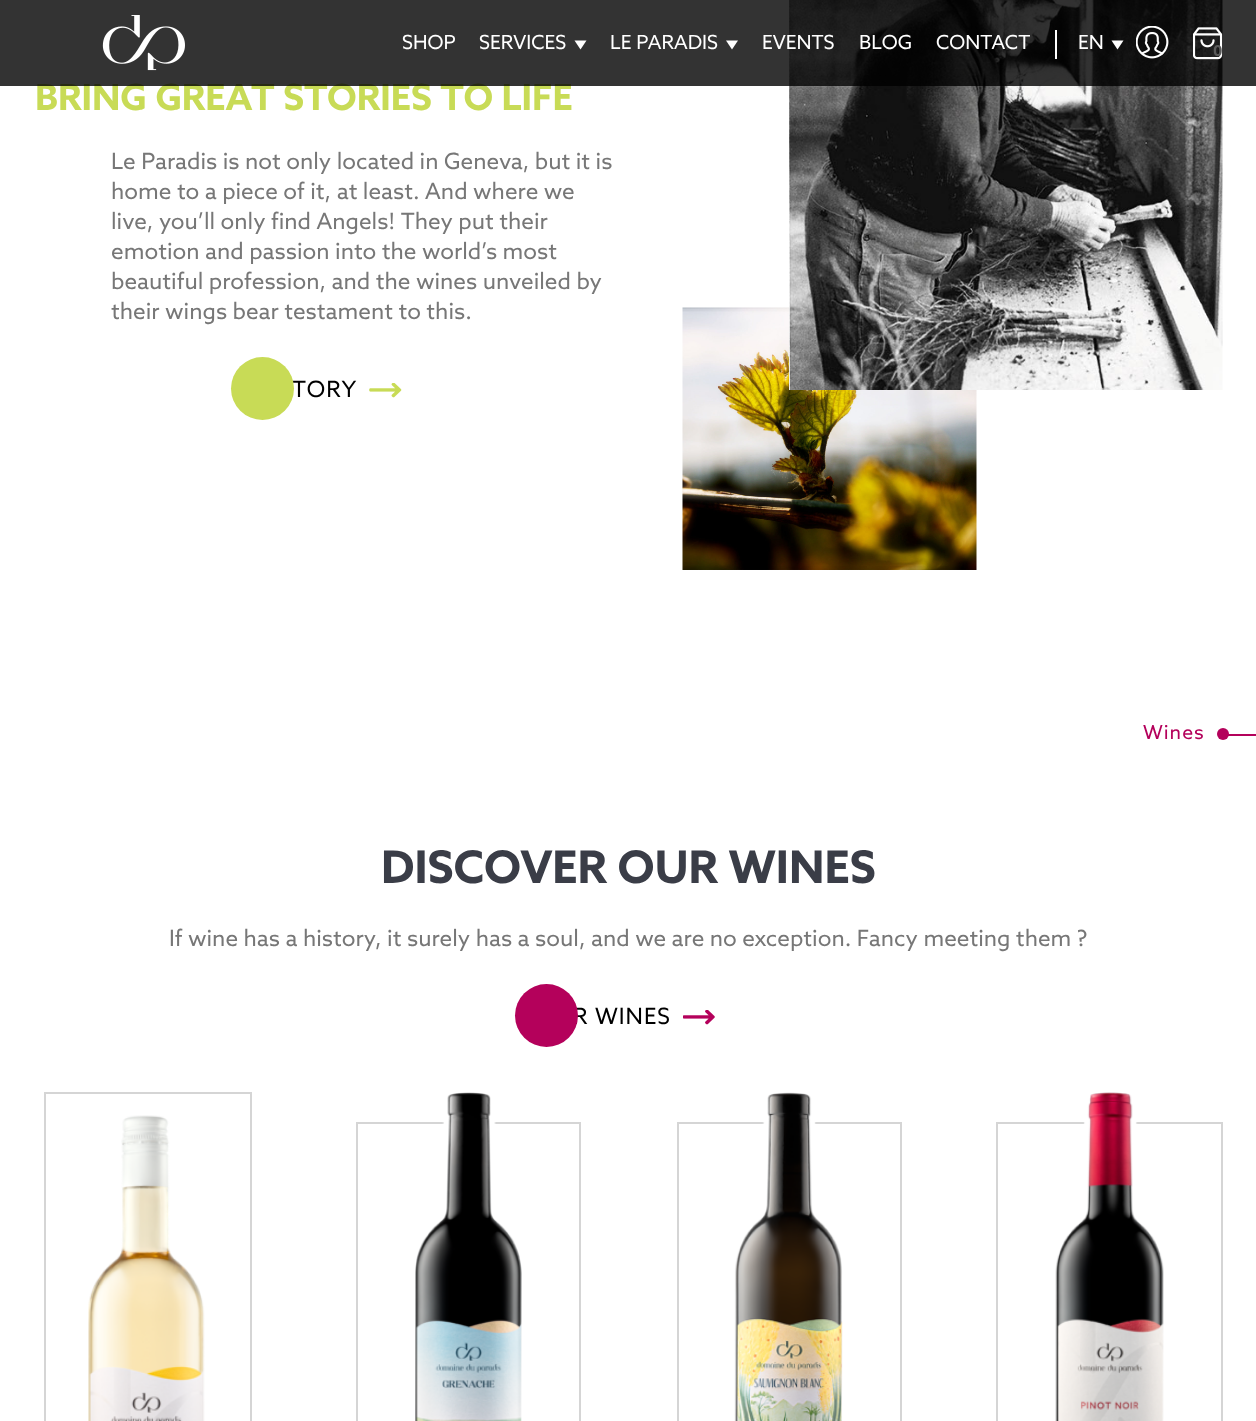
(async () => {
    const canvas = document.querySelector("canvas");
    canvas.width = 1256;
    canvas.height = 1421;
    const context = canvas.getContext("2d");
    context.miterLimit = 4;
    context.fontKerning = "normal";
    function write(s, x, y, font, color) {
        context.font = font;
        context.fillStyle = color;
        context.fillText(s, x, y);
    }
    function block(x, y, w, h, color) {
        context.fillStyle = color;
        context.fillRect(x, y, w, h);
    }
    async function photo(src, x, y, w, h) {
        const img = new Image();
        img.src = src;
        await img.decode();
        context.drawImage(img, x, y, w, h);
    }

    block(0, 0, 1256, 1421, "rgb(255, 255, 255)");
    write("BRING GREAT STORIES TO LIFE", 35, 110, "bold 36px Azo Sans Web", "rgb(200, 219, 86)");
    await photo("media/6.png", 682, 307, 295, 263);
    await photo("media/5.png", 789, 0, 434, 390);
    block(0, 0, 1256, 86, "rgba(0, 0, 0, 0.8)");
    await photo("media/1.png", 102, 15, 83, 56);
    write("SHOP", 402, 49, "19.5px Azo Sans Web", "rgb(255, 255, 255)");
    write("SERVICES", 479, 49, "19.5px Azo Sans Web", "rgb(255, 255, 255)");
    context.beginPath();
    context.moveTo(574.5, 40.5);
    context.lineTo(586.5, 40.5);
    context.lineTo(580.5, 49.5);
    context.closePath();
    context.fill();
    write("LE PARADIS", 610, 49, "19.5px Azo Sans Web", "rgb(255, 255, 255)");
    context.beginPath();
    context.moveTo(726, 40.5);
    context.lineTo(738, 40.5);
    context.lineTo(732, 49.5);
    context.closePath();
    context.fill();
    write("EVENTS", 762, 49, "19.5px Azo Sans Web", "rgb(255, 255, 255)");
    write("BLOG", 859, 49, "19.5px Azo Sans Web", "rgb(255, 255, 255)");
    write("CONTACT", 936, 49, "19.5px Azo Sans Web", "rgb(255, 255, 255)");
    block(1055, 30, 2, 29, "rgb(255, 255, 255)");
    write("EN", 1078, 49, "19.5px Azo Sans Web", "rgb(255, 255, 255)");
    context.beginPath();
    context.moveTo(1111.5, 40.5);
    context.lineTo(1123.5, 40.5);
    context.lineTo(1117.5, 49.5);
    context.closePath();
    context.fill();
    await photo("media/2.png", 1136, 26, 33, 33);
    await photo("media/3.png", 1193, 27, 30, 33);
    write("0", 1213, 56, "bold 15px Azo Sans Web", "rgb(91, 91, 91)");
    write("Le Paradis is not only located in Geneva, but it is", 111, 169, "22.5px Azo Sans Web", "rgb(119, 119, 119)");
    write("home to a piece of it, at least. And where we", 111, 199, "22.5px Azo Sans Web", "rgb(119, 119, 119)");
    write("live, you’ll only find Angels! They put their", 111, 229, "22.5px Azo Sans Web", "rgb(119, 119, 119)");
    write("emotion and passion into the world’s most", 111, 259, "22.5px Azo Sans Web", "rgb(119, 119, 119)");
    write("beautiful profession, and the wines unveiled by", 111, 289, "22.5px Azo Sans Web", "rgb(119, 119, 119)");
    write("their wings bear testament to this.", 111, 319, "22.5px Azo Sans Web", "rgb(119, 119, 119)");
    context.letterSpacing = "1px";
    write("TORY", 292, 397, "22.5px Azo Sans Web", "rgb(0, 0, 0)");
    context.fillStyle = "rgb(200, 219, 86)";
    context.beginPath();
    context.arc(262.5, 388.5, 31.5, 0, Math.PI * 2);
    context.fill();
    await photo("media/4.png", 369, 383, 33, 15);
    write("Wines", 1143, 739, "19.5px Azo Sans Web", "rgb(180, 1, 91)");
    block(1223, 734, 33, 2, "rgb(180, 1, 91)");
    context.beginPath();
    context.arc(1223, 734, 6, 0, Math.PI * 2);
    context.fill();
    context.letterSpacing = "0px";
    write("DISCOVER OUR WINES", 381, 883, "bold 45px Azo Sans Web", "rgb(58, 61, 71)");
    write("If wine has a history, it surely has a soul, and we are no exception. Fancy meeting them ?", 169, 946, "22.5px Azo Sans Web", "rgb(119, 119, 119)");
    context.letterSpacing = "1px";
    write("R WINES", 573, 1024, "22.5px Azo Sans Web", "rgb(0, 0, 0)");
    context.fillStyle = "rgb(180, 1, 91)";
    context.beginPath();
    context.arc(546.5, 1015.5, 31.5, 0, Math.PI * 2);
    context.fill();
    await photo("media/7.png", 683, 1010, 32, 15);
    await photo("media/8.png", 88, 1115, 117, 306);
    context.strokeStyle = "rgb(213, 213, 213)";
    context.lineWidth = 2;
    context.strokeRect(45, 1093, 206, 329);
    context.strokeRect(357, 1123, 223, 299);
    await photo("media/9.png", 415, 1092, 107, 329);
    context.strokeRect(678, 1123, 223, 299);
    await photo("media/10.png", 734, 1092, 109, 329);
    context.strokeRect(997, 1123, 225, 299);
    await photo("media/11.png", 1055, 1092, 109, 329);
})();
